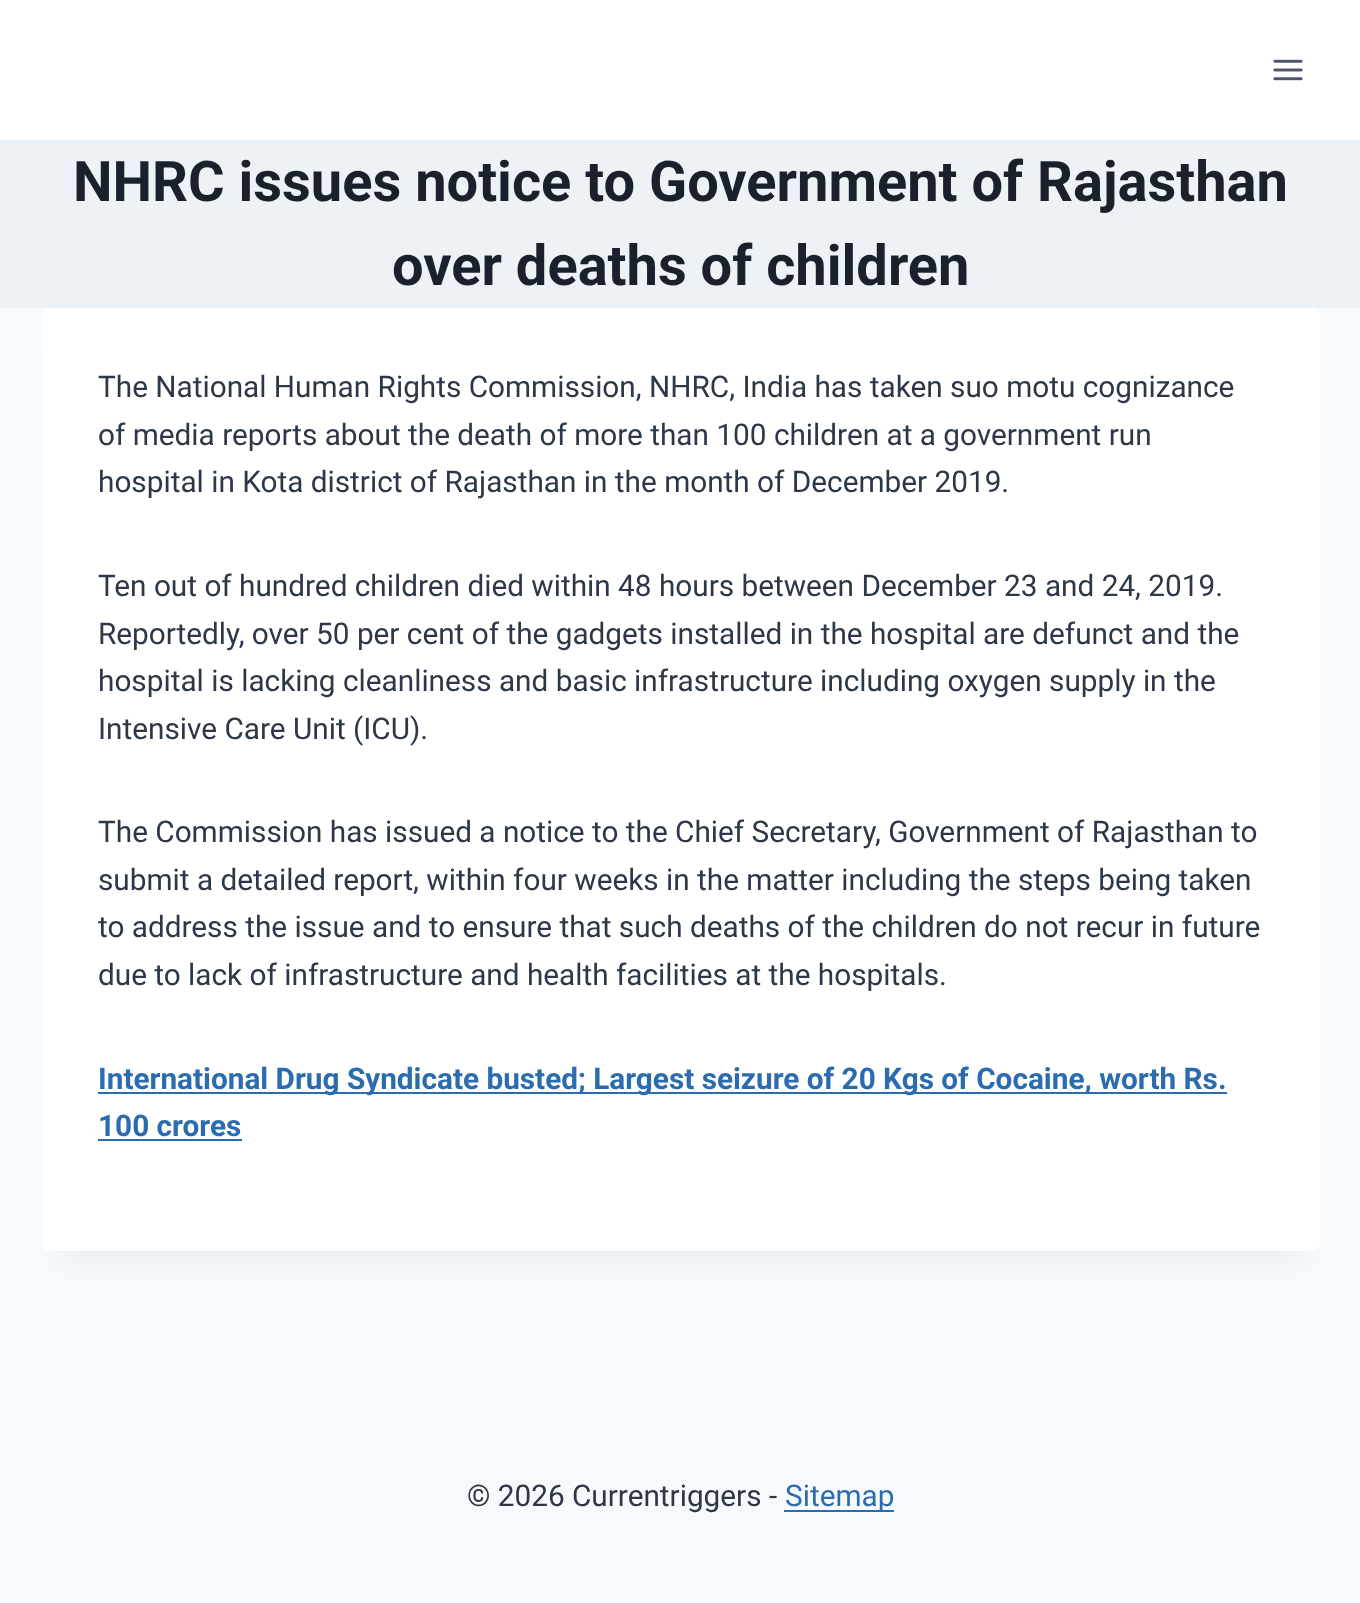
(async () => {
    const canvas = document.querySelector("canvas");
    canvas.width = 1360;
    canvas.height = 1603;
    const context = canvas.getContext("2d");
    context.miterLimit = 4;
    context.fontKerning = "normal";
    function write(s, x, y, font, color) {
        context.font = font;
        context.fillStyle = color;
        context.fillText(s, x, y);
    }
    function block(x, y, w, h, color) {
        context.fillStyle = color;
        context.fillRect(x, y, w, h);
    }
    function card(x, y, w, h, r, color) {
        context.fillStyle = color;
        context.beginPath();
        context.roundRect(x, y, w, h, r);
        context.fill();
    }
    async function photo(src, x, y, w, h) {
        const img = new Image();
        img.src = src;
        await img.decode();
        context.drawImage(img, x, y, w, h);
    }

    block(0, 0, 1360, 1603, "rgb(247, 250, 252)");
    block(0, 0, 1360, 140, "rgb(255, 255, 255)");
    await photo("media/1.png", 1273, 59, 30, 22);
    block(0, 140, 1360, 168, "rgb(237, 242, 247)");
    write("NHRC issues notice to Government of Rajasthan", 73, 201, "bold 56px Roboto", "rgb(26, 32, 44)");
    write("over deaths of children", 392, 285, "bold 56px Roboto", "rgb(26, 32, 44)");
    context.fillStyle = "rgba(0, 0, 0, 0.05)";
    context.filter = "blur(13px)";
    context.beginPath();
    context.rect(60, 352, 1242, 908);
    context.fill();
    context.filter = "none";
    card(42, 308, 1278, 943, 7, "rgb(255, 255, 255)");
    write("The National Human Rights Commission, NHRC, India has taken suo motu cognizance", 98, 397, "29.75px Roboto", "rgb(45, 55, 72)");
    write("of media reports about the death of more than 100 children at a government run", 98, 445, "29.75px Roboto", "rgb(45, 55, 72)");
    write("hospital in Kota district of Rajasthan in the month of December 2019.", 98, 492, "29.75px Roboto", "rgb(45, 55, 72)");
    write("Ten out of hundred children died within 48 hours between December 23 and 24, 2019.", 98, 596, "29.75px Roboto", "rgb(45, 55, 72)");
    write("Reportedly, over 50 per cent of the gadgets installed in the hospital are defunct and the", 98, 644, "29.75px Roboto", "rgb(45, 55, 72)");
    write("hospital is lacking cleanliness and basic infrastructure including oxygen supply in the", 98, 691, "29.75px Roboto", "rgb(45, 55, 72)");
    write("Intensive Care Unit (ICU).", 98, 739, "29.75px Roboto", "rgb(45, 55, 72)");
    write("The Commission has issued a notice to the Chief Secretary, Government of Rajasthan to", 98, 842, "29.75px Roboto", "rgb(45, 55, 72)");
    write("submit a detailed report, within four weeks in the matter including the steps being taken", 98, 890, "29.75px Roboto", "rgb(45, 55, 72)");
    write("to address the issue and to ensure that such deaths of the children do not recur in future", 98, 937, "29.75px Roboto", "rgb(45, 55, 72)");
    write("due to lack of infrastructure and health facilities at the hospitals.", 98, 985, "29.75px Roboto", "rgb(45, 55, 72)");
    block(98, 1092, 1129, 2, "rgb(43, 108, 176)");
    write("International Drug Syndicate busted; Largest seizure of 20 Kgs of Cocaine, worth Rs.", 98, 1089, "bold 29.75px Roboto", "rgb(43, 108, 176)");
    write("100 crores", 98, 1136, "bold 29.75px Roboto", "rgb(43, 108, 176)");
    block(98, 1139, 144, 2, "rgb(43, 108, 176)");
    write("© 2026 Currentriggers -", 467, 1506, "29.75px Roboto", "rgb(45, 55, 72)");
    block(784, 1510, 110, 2, "rgb(43, 108, 176)");
    write("Sitemap", 785, 1506, "29.75px Roboto", "rgb(43, 108, 176)");
})();
